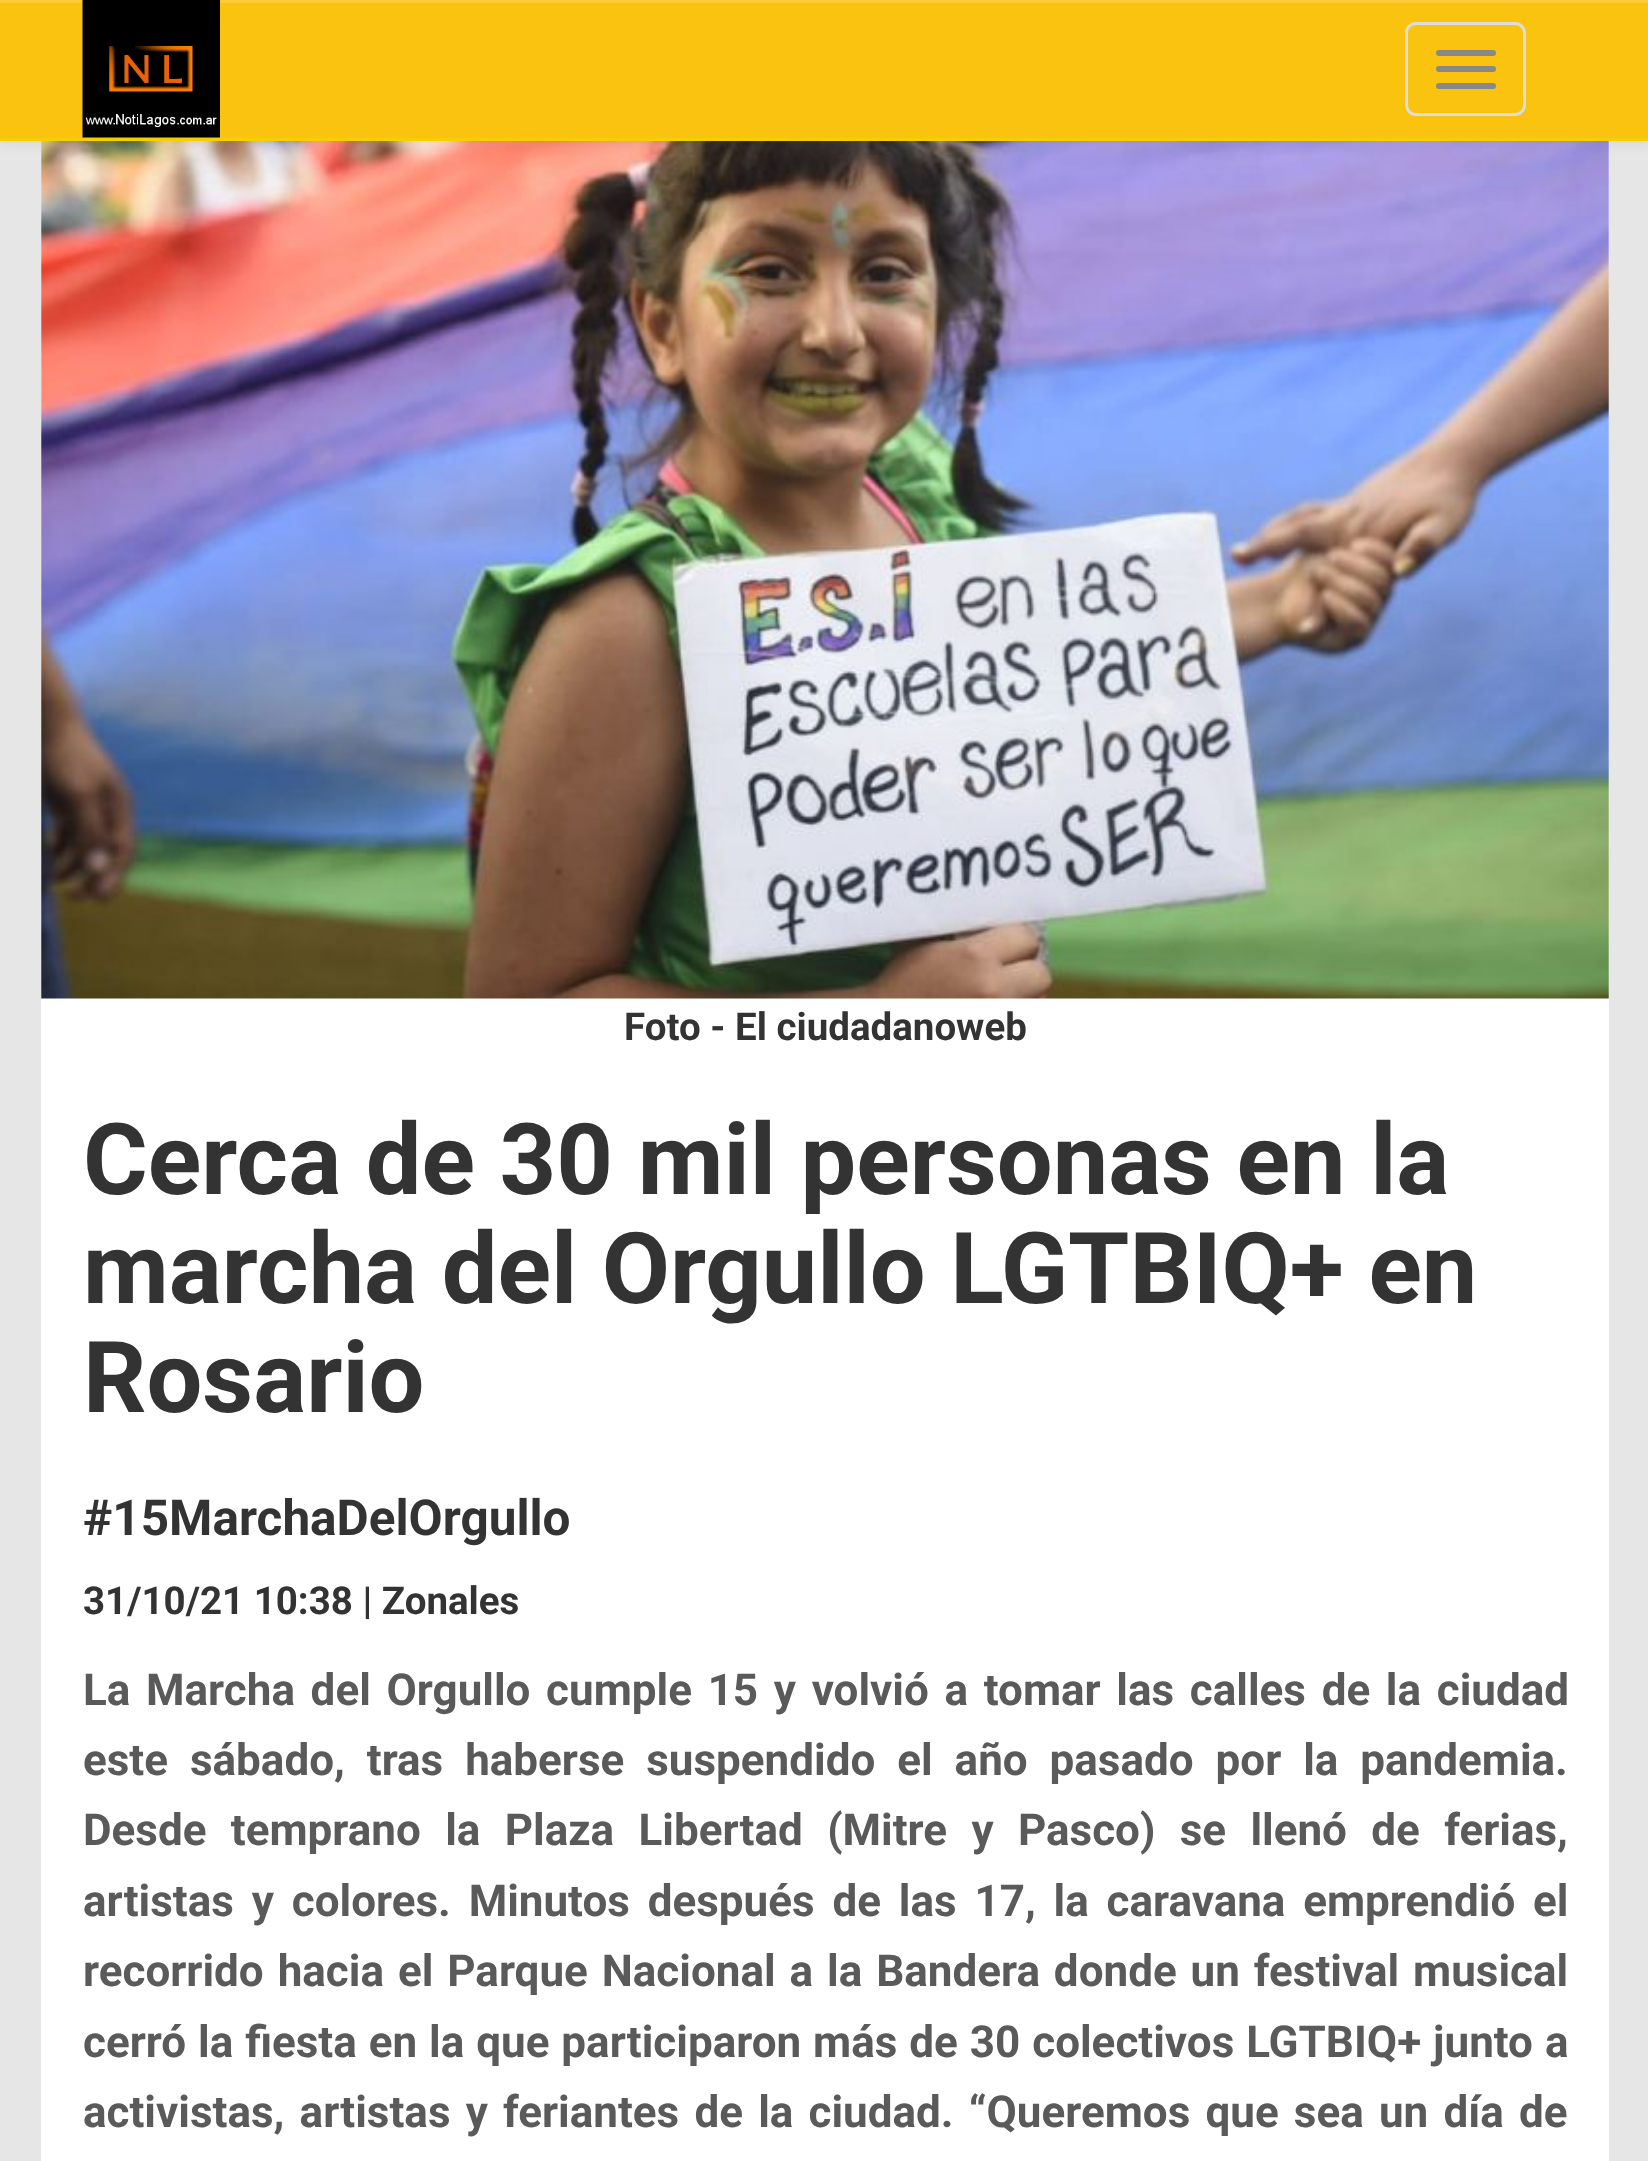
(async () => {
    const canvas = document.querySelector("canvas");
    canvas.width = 1648;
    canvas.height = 2161;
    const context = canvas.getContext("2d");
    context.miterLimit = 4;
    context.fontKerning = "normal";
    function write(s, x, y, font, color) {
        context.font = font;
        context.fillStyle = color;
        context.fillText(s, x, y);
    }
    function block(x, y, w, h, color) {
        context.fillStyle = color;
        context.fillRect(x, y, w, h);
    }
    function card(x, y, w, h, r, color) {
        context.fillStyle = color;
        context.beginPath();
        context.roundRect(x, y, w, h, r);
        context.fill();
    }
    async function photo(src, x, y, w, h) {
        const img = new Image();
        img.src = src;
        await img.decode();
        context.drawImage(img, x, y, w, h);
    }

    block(0, 0, 1648, 2161, "rgb(230, 230, 230)");
    block(41, 141, 1568, 2020, "rgb(255, 255, 255)");
    await photo("media/2.png", 41, 141, 1568, 858);
    context.fillStyle = "rgba(0, 0, 0, 0.07)";
    context.filter = "blur(7px)";
    context.beginPath();
    context.rect(0, 3, 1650, 140);
    context.fill();
    context.filter = "none";
    block(0, 3, 1648, 135, "rgb(250, 195, 16)");
    block(0, 0, 1648, 3, "rgb(251, 204, 52)");
    block(0, 138, 1648, 3, "rgb(247, 206, 1)");
    await photo("media/1.png", 82, 0, 138, 138);
    context.beginPath();
    context.roundRect(1406.5, 23.5, 118, 91, 9.5);
    context.strokeStyle = "rgb(221, 221, 221)";
    context.lineWidth = 3;
    context.stroke();
    card(1436, 50, 60, 6, 3, "rgb(136, 136, 136)");
    card(1436, 66, 60, 6, 3, "rgb(136, 136, 136)");
    card(1436, 83, 60, 6, 3, "rgb(136, 136, 136)");
    write("Foto - El ciudadanoweb", 624, 1040, "bold 38.5px Roboto", "rgb(51, 51, 51)");
    write("Cerca de 30 mil personas en la", 83, 1194, "bold 99px Roboto", "rgb(51, 51, 51)");
    write("marcha del Orgullo LGTBIQ+ en", 83, 1303, "bold 99px Roboto", "rgb(51, 51, 51)");
    write("Rosario", 83, 1412, "bold 99px Roboto", "rgb(51, 51, 51)");
    write("#15MarchaDelOrgullo", 83, 1535, "bold 49.5px Roboto", "rgb(51, 51, 51)");
    write("31/10/21 10:38 | Zonales", 83, 1614, "bold 38.5px Roboto", "rgb(51, 51, 51)");
    context.wordSpacing = "4.75px";
    write("La Marcha del Orgullo cumple 15 y volvió a tomar las calles de la ciudad", 83, 1705, "bold 44px Roboto", "rgb(90, 90, 90)");
    context.wordSpacing = "11px";
    write("este sábado, tras haberse suspendido el año pasado por la pandemia.", 83, 1775, "bold 44px Roboto", "rgb(90, 90, 90)");
    context.wordSpacing = "13.4px";
    write("Desde temprano la Plaza Libertad (Mitre y Pasco) se llenó de ferias,", 83, 1845, "bold 44px Roboto", "rgb(90, 90, 90)");
    context.wordSpacing = "6.9px";
    write("artistas y colores. Minutos después de las 17, la caravana emprendió el", 83, 1916, "bold 44px Roboto", "rgb(90, 90, 90)");
    context.wordSpacing = "3px";
    write("recorrido hacia el Parque Nacional a la Bandera donde un festival musical", 83, 1986, "bold 44px Roboto", "rgb(90, 90, 90)");
    context.wordSpacing = "1px";
    write("cerró la fiesta en la que participaron más de 30 colectivos LGTBIQ+ junto a", 83, 2057, "bold 44px Roboto", "rgb(90, 90, 90)");
    context.wordSpacing = "4.25px";
    write("activistas, artistas y feriantes de la ciudad. “Queremos que sea un día de", 83, 2127, "bold 44px Roboto", "rgb(90, 90, 90)");
})();
